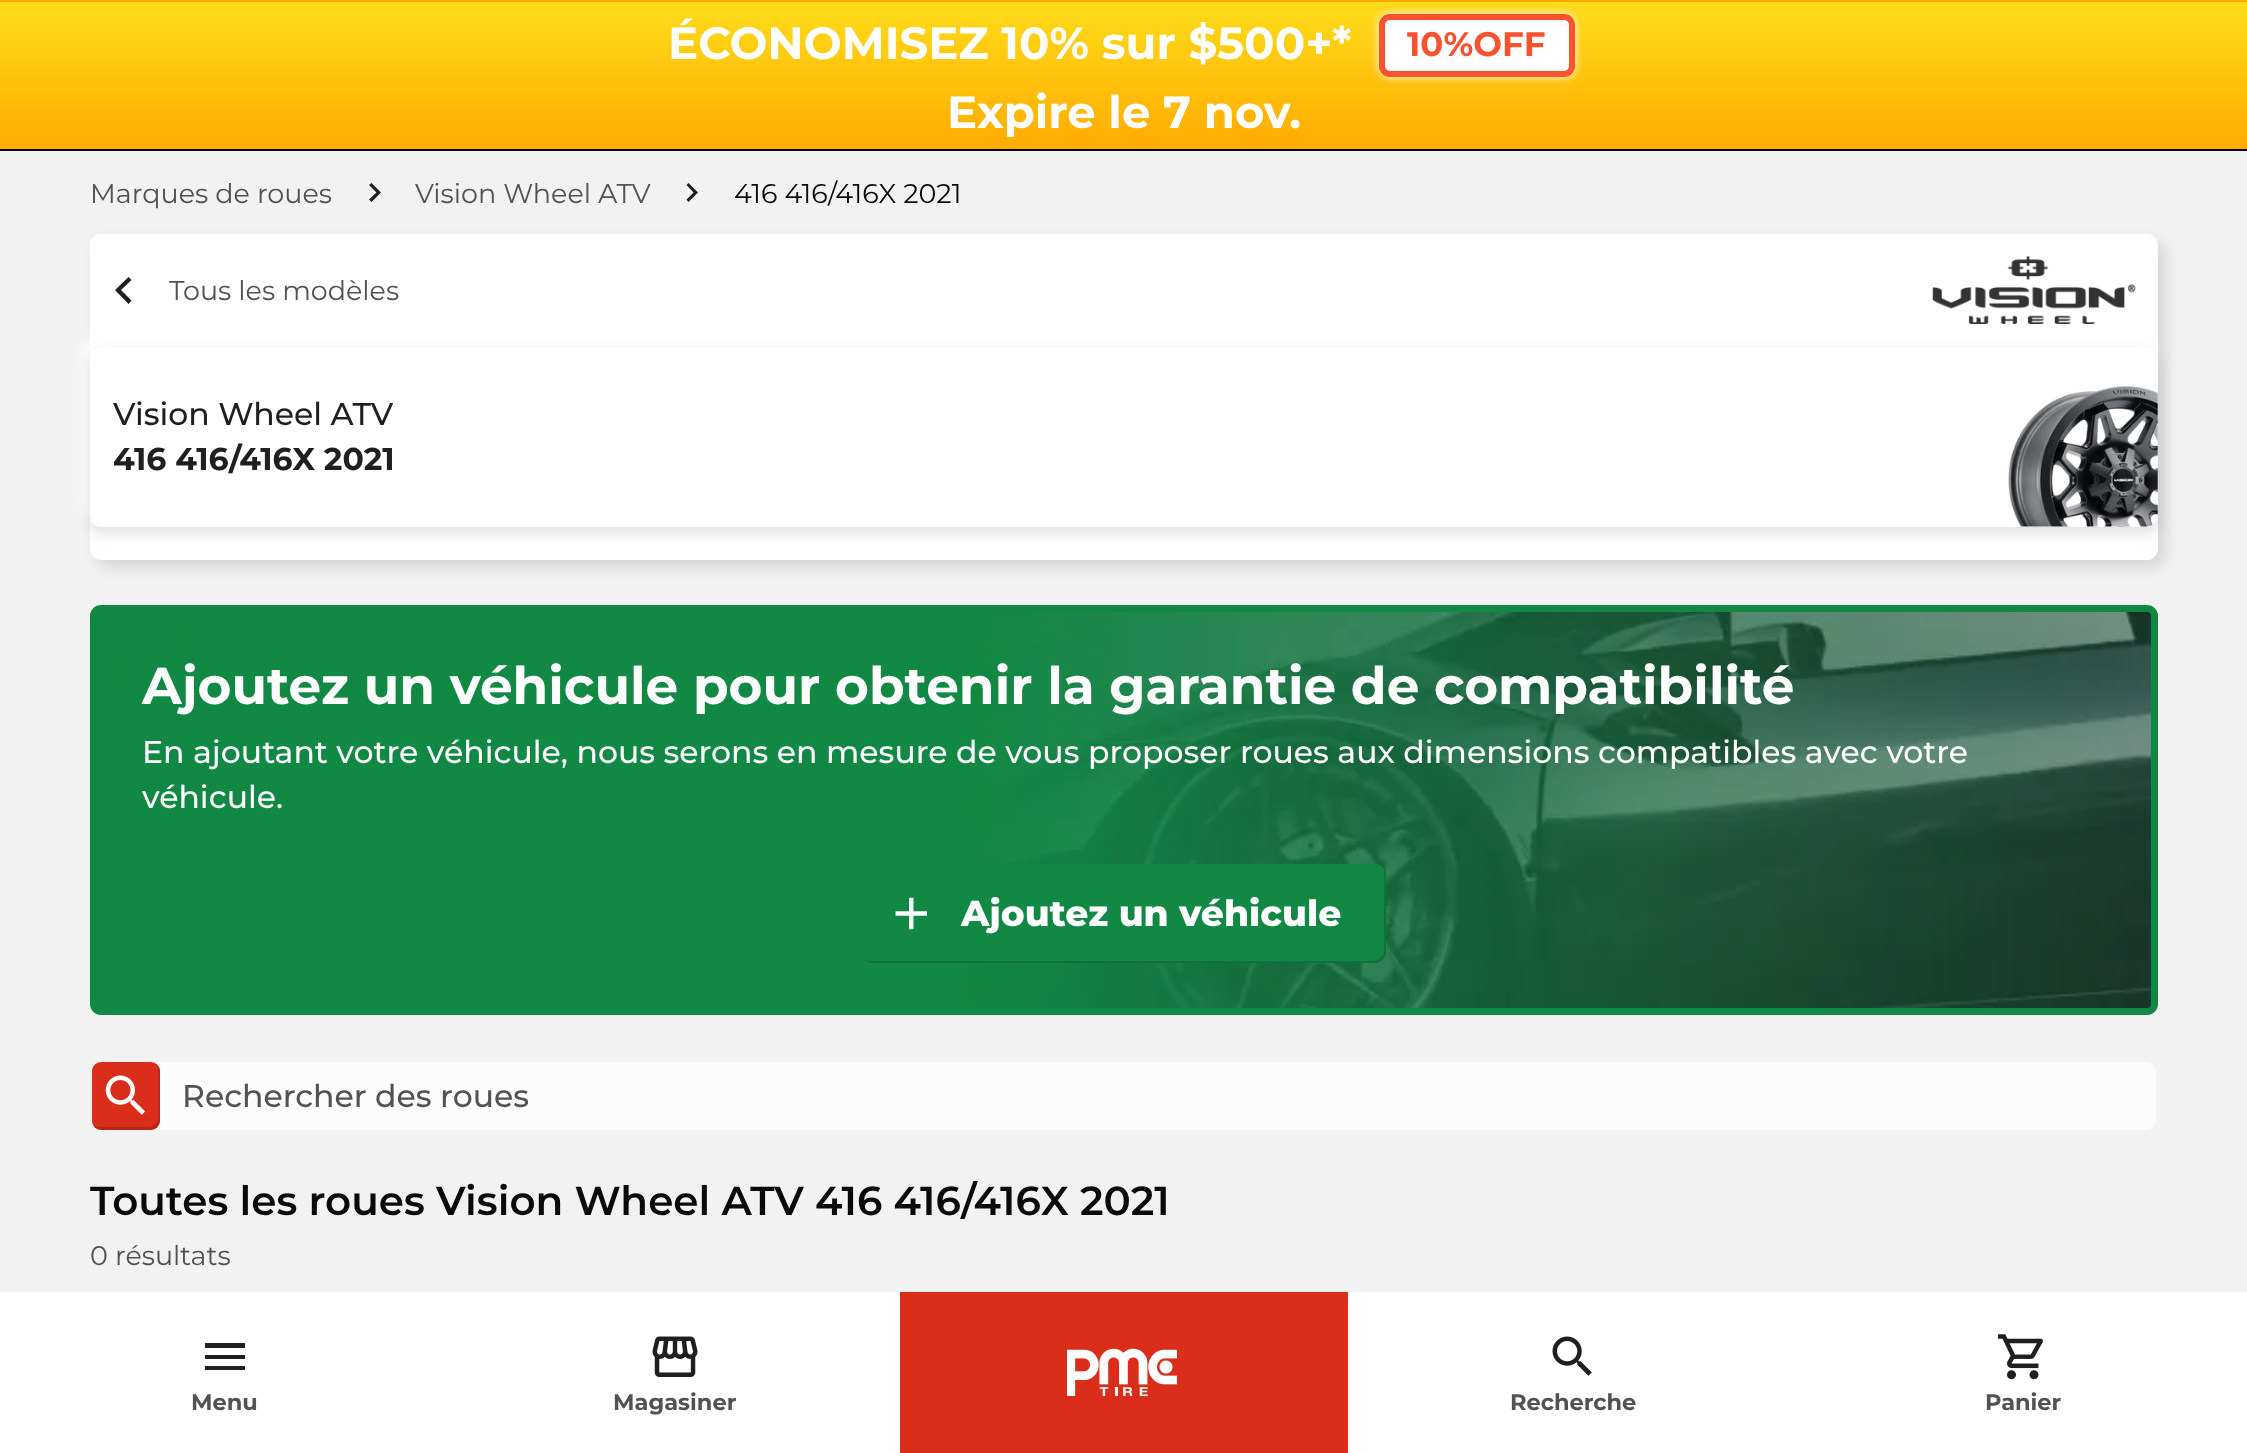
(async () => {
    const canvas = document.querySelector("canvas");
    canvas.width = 2247;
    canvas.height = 1453;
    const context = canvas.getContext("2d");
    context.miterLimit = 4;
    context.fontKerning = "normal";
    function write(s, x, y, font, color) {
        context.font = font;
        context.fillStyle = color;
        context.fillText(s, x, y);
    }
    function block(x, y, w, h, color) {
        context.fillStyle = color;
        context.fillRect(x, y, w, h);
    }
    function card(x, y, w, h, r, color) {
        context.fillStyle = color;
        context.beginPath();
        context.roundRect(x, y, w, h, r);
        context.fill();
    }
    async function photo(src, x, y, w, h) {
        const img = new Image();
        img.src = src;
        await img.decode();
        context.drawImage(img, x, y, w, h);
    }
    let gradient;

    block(0, 0, 2247, 1453, "rgb(255, 255, 255)");
    gradient = context.createLinearGradient(1124, -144, 1124, 2.3);
    gradient.addColorStop(0, "rgb(255, 220, 26)");
    gradient.addColorStop(1, "rgb(255, 171, 0)");
    context.fillStyle = gradient;
    context.fillRect(0, 0, 2247, 2);
    gradient = context.createLinearGradient(1124, 2.2, 1124, 149);
    gradient.addColorStop(0, "rgb(255, 220, 26)");
    gradient.addColorStop(1, "rgb(255, 171, 0)");
    context.fillStyle = gradient;
    context.fillRect(0, 2, 2247, 147);
    block(0, 149, 2247, 2, "rgb(0, 0, 0)");
    write("ÉCONOMISEZ 10% sur $500+*", 668, 59, "bold 45px Montserrat", "rgb(255, 255, 255)");
    context.filter = "blur(4.5px)";
    context.beginPath();
    context.roundRect(1379, 14, 196, 63, 11);
    context.fill();
    context.filter = "none";
    context.beginPath();
    context.roundRect(1382, 17, 190, 57, 8);
    context.fill();
    context.strokeStyle = "rgb(248, 82, 46)";
    context.lineWidth = 6;
    context.stroke();
    write("10%OFF", 1407, 56, "bold 34px Montserrat", "rgb(248, 82, 46)");
    write("Expire le 7 nov.", 947, 128, "bold 45px Montserrat", "rgb(255, 255, 255)");
    block(0, 151, 2247, 1141, "rgb(242, 242, 242)");
    write("Marques de roues", 90, 203, "27px Montserrat", "rgb(82, 82, 82)");
    context.fillStyle = "rgb(31, 31, 31)";
    context.beginPath();
    context.moveTo(371.5, 183);
    context.lineTo(369, 185);
    context.lineTo(376.5, 192.5);
    context.lineTo(369, 199.5);
    context.lineTo(371.5, 202);
    context.lineTo(381, 192.5);
    context.closePath();
    context.fill();
    write("Vision Wheel ATV", 415, 203, "27px Montserrat", "rgb(82, 82, 82)");
    context.fillStyle = "rgb(31, 31, 31)";
    context.beginPath();
    context.moveTo(688.5, 183);
    context.lineTo(686.5, 185);
    context.lineTo(693.5, 192.5);
    context.lineTo(686.5, 199.5);
    context.lineTo(688.5, 202);
    context.lineTo(698, 192.5);
    context.closePath();
    context.fill();
    write("416 416/416X 2021", 734, 203, "27px Montserrat", "rgb(10, 10, 10)");
    context.fillStyle = "rgba(100, 101, 114, 0.2)";
    context.filter = "blur(7px)";
    context.beginPath();
    context.roundRect(97, 241, 2068, 326, 11);
    context.fill();
    context.filter = "none";
    card(90, 234, 2068, 326, 11, "rgb(255, 255, 255)");
    context.fillStyle = "rgb(31, 31, 31)";
    context.beginPath();
    context.moveTo(131.5, 280);
    context.lineTo(128.5, 277);
    context.lineTo(115, 290);
    context.lineTo(128.5, 304);
    context.lineTo(131.5, 300.5);
    context.lineTo(121, 290);
    context.closePath();
    context.fill();
    write("Tous les modèles", 169, 300, "27px Montserrat", "rgb(82, 82, 82)");
    await photo("media/1.png", 1932, 256, 204, 68);
    context.fillStyle = "rgb(255, 255, 255)";
    context.filter = "blur(7px)";
    context.beginPath();
    context.roundRect(83, 340, 2068, 180, 11);
    context.fill();
    context.filter = "none";
    context.fillStyle = "rgba(100, 101, 114, 0.2)";
    context.filter = "blur(7px)";
    context.beginPath();
    context.roundRect(90, 353, 2068, 180, 11);
    context.fill();
    context.filter = "none";
    card(90, 347, 2068, 180, 11, "rgb(255, 255, 255)");
    write("Vision Wheel ATV", 113, 425, "500 31.5px Montserrat", "rgb(31, 31, 31)");
    write("416 416/416X 2021", 113, 470, "bold 31.5px Montserrat", "rgb(31, 31, 31)");
    await photo("media/2.png", 2007, 386, 151, 141);
    await photo("media/3.png", 97, 612, 2061, 396);
    context.beginPath();
    context.roundRect(93.5, 608.5, 2061, 403, 7.5);
    context.strokeStyle = "rgb(17, 136, 68)";
    context.lineWidth = 7;
    context.stroke();
    write("Ajoutez un véhicule pour obtenir la garantie de compatibilité", 142, 704, "bold 51.75px Montserrat", "rgb(255, 255, 255)");
    write("En ajoutant votre véhicule, nous serons en mesure de vous proposer roues aux dimensions compatibles avec votre", 142, 763, "500 31.5px Montserrat", "rgb(255, 255, 255)");
    write("véhicule.", 142, 808, "500 31.5px Montserrat", "rgb(255, 255, 255)");
    card(862, 864, 524, 99, 11, "rgb(17, 136, 68)");
    context.fillStyle = "rgba(0, 0, 0, 0.16)";
    context.beginPath();
    context.moveTo(864, 959);
    context.bezierCurveTo(866, 961, 869, 963, 873, 963);
    context.lineTo(1375, 963);
    context.bezierCurveTo(1381, 963, 1386, 958, 1386, 952);
    context.lineTo(1386, 875);
    context.bezierCurveTo(1386, 871, 1384, 868, 1381, 866);
    context.bezierCurveTo(1383, 868, 1384, 870, 1384, 873);
    context.lineTo(1384, 950);
    context.bezierCurveTo(1384, 956, 1379, 961, 1372, 961);
    context.lineTo(871, 961);
    context.bezierCurveTo(868, 961, 866, 960, 864, 959);
    context.closePath();
    context.fill();
    await photo("media/4.png", 895, 897, 32, 33);
    write("Ajoutez un véhicule", 961, 926, "800 36px Montserrat", "rgb(255, 255, 255)");
    context.fillStyle = "rgb(252, 252, 252)";
    context.beginPath();
    context.roundRect(91, 1061, 2066, 70, 10);
    context.fill();
    context.strokeStyle = "rgb(242, 242, 242)";
    context.lineWidth = 2;
    context.stroke();
    card(92, 1062, 68, 68, 9, "rgb(218, 46, 27)");
    context.fillStyle = "rgba(0, 0, 0, 0.16)";
    context.beginPath();
    context.moveTo(93, 1124);
    context.bezierCurveTo(94, 1128, 97, 1130, 101, 1130);
    context.lineTo(151, 1130);
    context.bezierCurveTo(156, 1130, 160, 1126, 160, 1121);
    context.lineTo(160, 1071);
    context.bezierCurveTo(160, 1068, 158, 1065, 155, 1063);
    context.bezierCurveTo(157, 1065, 158, 1067, 158, 1069);
    context.lineTo(158, 1118);
    context.bezierCurveTo(158, 1123, 153, 1127, 148, 1127);
    context.lineTo(99, 1127);
    context.bezierCurveTo(97, 1127, 94, 1126, 93, 1124);
    context.closePath();
    context.fill();
    await photo("media/5.png", 105, 1075, 40, 40);
    write("Rechercher des roues", 182, 1107, "500 31.5px Montserrat", "rgb(82, 82, 82)");
    write("Toutes les roues Vision Wheel ATV 416 416/416X 2021", 90, 1215, "600 40.5px Montserrat", "rgb(10, 10, 10)");
    write("0 résultats", 90, 1265, "27px Montserrat", "rgb(82, 82, 82)");
    context.fillStyle = "rgb(31, 31, 31)";
    context.beginPath();
    context.moveTo(205, 1370);
    context.lineTo(245, 1370);
    context.lineTo(245, 1366);
    context.lineTo(205, 1366);
    context.closePath();
    context.moveTo(205, 1359);
    context.lineTo(245, 1359);
    context.lineTo(245, 1355);
    context.lineTo(205, 1355);
    context.closePath();
    context.moveTo(205, 1343);
    context.lineTo(205, 1348);
    context.lineTo(245, 1348);
    context.lineTo(245, 1343);
    context.closePath();
    context.fill();
    write("Menu", 191, 1410, "bold 22.5px Montserrat", "rgb(82, 82, 82)");
    await photo("media/6.png", 652, 1336, 46, 41);
    write("Magasiner", 613, 1410, "bold 22.5px Montserrat", "rgb(82, 82, 82)");
    block(900, 1292, 448, 161, "rgb(218, 46, 27)");
    await photo("media/7.png", 1067, 1348, 110, 49);
    await photo("media/8.png", 1552, 1336, 40, 40);
    write("Recherche", 1510, 1410, "bold 22.5px Montserrat", "rgb(82, 82, 82)");
    await photo("media/9.png", 1997, 1334, 46, 46);
    write("Panier", 1985, 1410, "bold 22.5px Montserrat", "rgb(82, 82, 82)");
})();
